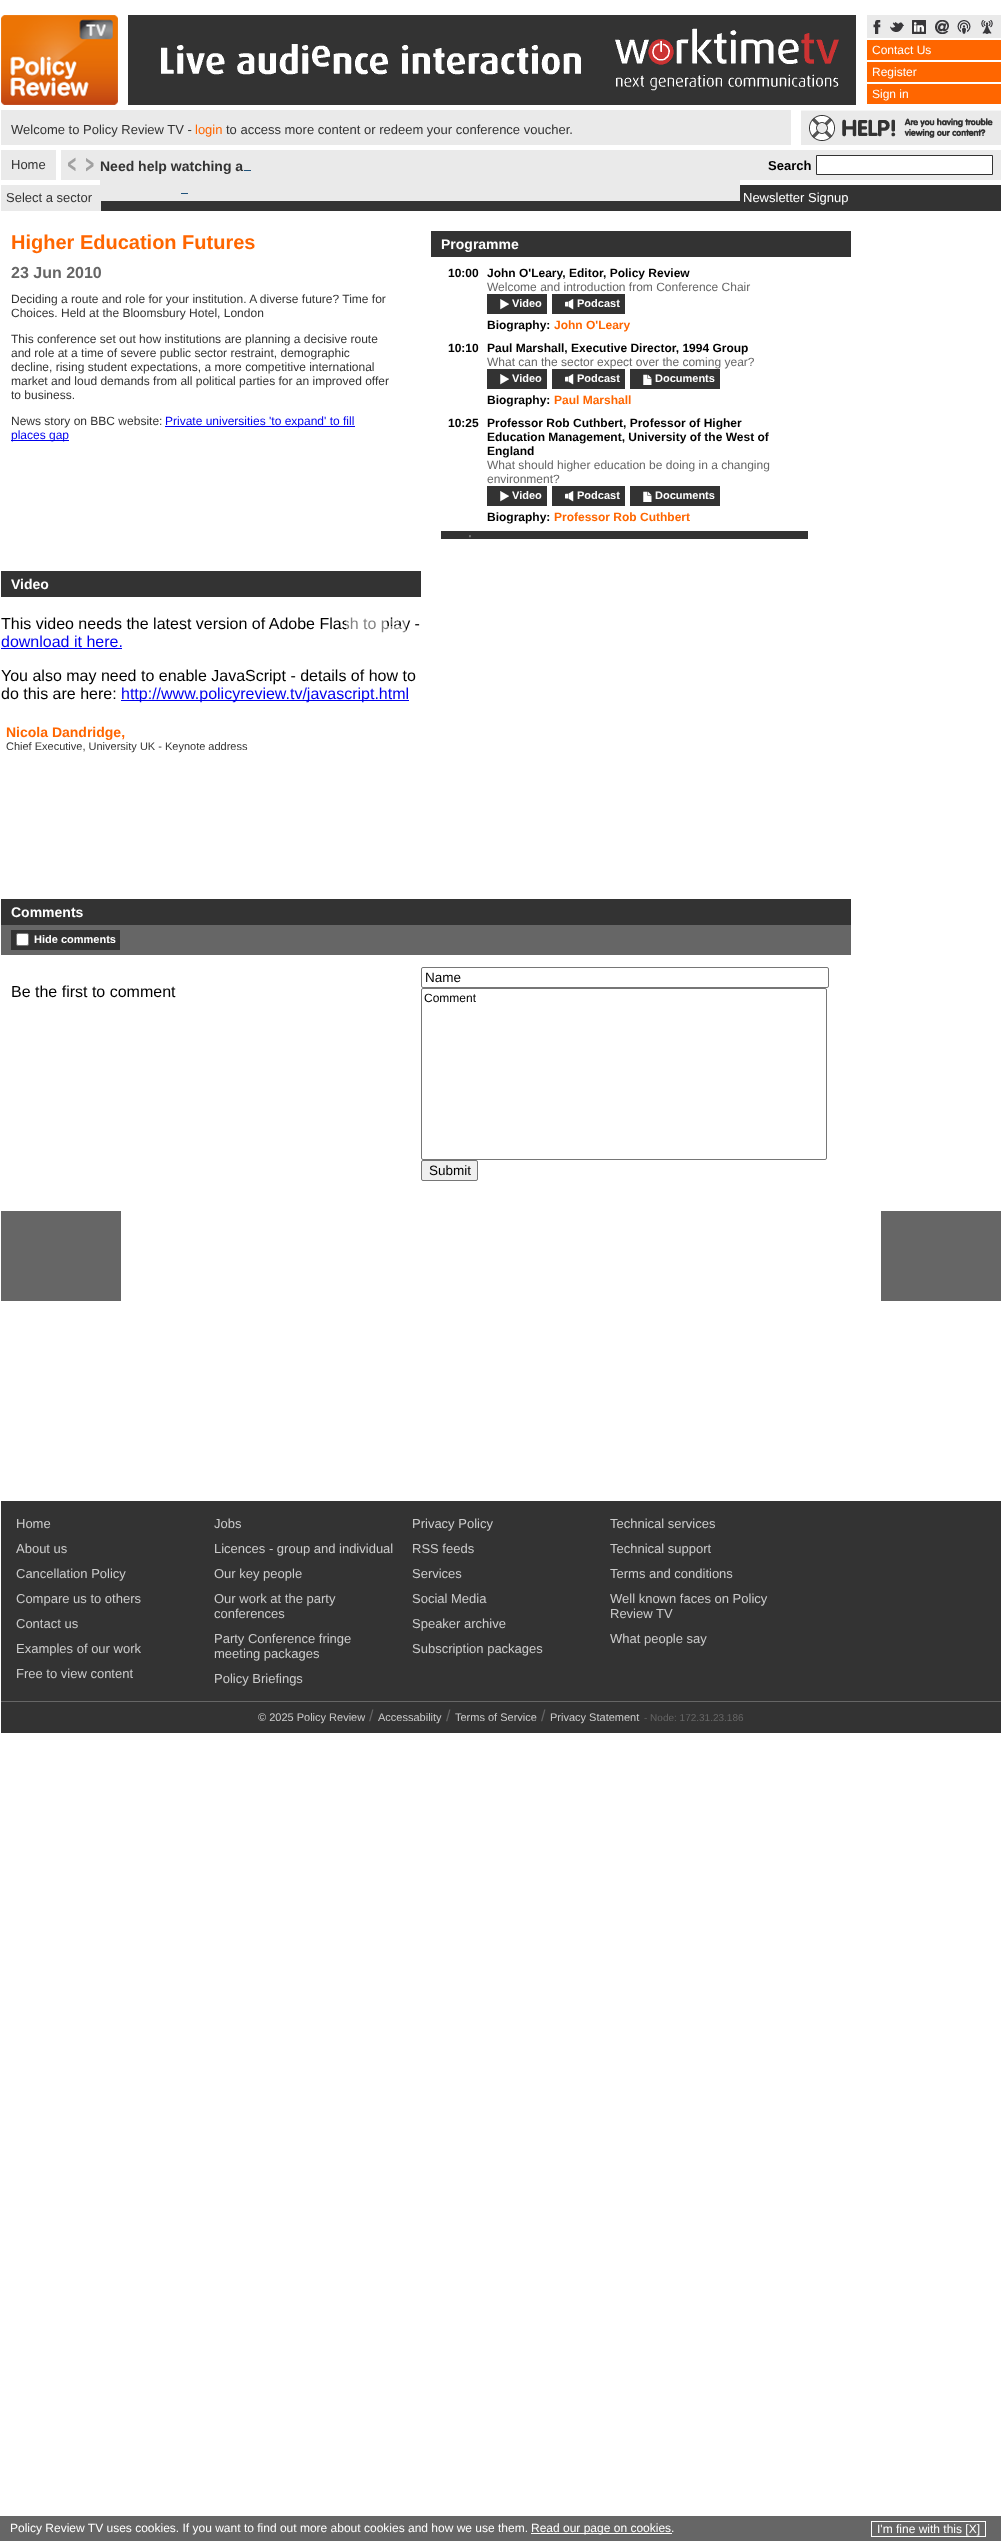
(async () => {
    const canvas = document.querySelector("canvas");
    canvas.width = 1001;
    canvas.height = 2541;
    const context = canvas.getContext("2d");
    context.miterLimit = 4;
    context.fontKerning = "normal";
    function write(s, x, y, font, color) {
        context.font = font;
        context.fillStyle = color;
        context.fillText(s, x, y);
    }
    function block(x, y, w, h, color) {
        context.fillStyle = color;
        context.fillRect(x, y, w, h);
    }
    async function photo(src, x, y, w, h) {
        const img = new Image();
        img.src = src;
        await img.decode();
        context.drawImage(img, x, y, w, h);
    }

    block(0, 0, 1001, 2541, "rgb(255, 255, 255)");
    await photo("media/1.png", 1, 15, 117, 90);
    await photo("media/2.png", 128, 15, 728, 90);
    block(867, 15, 134, 23, "rgb(234, 234, 234)");
    await photo("media/3.png", 873, 20, 8, 14);
    await photo("media/4.png", 890, 22, 14, 10);
    await photo("media/5.png", 912, 20, 14, 14);
    await photo("media/6.png", 935, 20, 14, 14);
    await photo("media/7.png", 957, 20, 14, 14);
    await photo("media/8.png", 981, 20, 12, 14);
    block(867, 40, 134, 20, "rgb(255, 102, 0)");
    write("Contact Us", 872, 54, "12px Liberation Sans", "rgb(255, 255, 255)");
    block(867, 62, 134, 20, "rgb(255, 102, 0)");
    write("Register", 872, 76, "12px Liberation Sans", "rgb(255, 255, 255)");
    block(867, 84, 134, 20, "rgb(255, 102, 0)");
    write("Sign in", 872, 98, "12px Liberation Sans", "rgb(255, 255, 255)");
    block(1, 110, 790, 35, "rgb(234, 234, 234)");
    write("Welcome to Policy Review TV -", 11, 134, "13px Liberation Sans", "rgb(51, 51, 51)");
    write("login", 195, 134, "13px Liberation Sans", "rgb(255, 102, 0)");
    write("to access more content or redeem your conference voucher.", 226, 134, "13px Liberation Sans", "rgb(51, 51, 51)");
    await photo("media/9.png", 801, 110, 200, 35);
    block(1, 150, 55, 30, "rgb(234, 234, 234)");
    write("Home", 11, 169, "13px Liberation Sans", "rgb(51, 51, 51)");
    block(61, 150, 940, 30, "rgb(234, 234, 234)");
    await photo("media/10.png", 68, 157, 8, 14);
    await photo("media/11.png", 86, 158, 8, 14);
    write("Need help watching a", 100, 171, "bold 14px Liberation Sans", "rgb(51, 51, 51)");
    block(244, 170, 7, 1, "rgb(31, 82, 123)");
    block(101, 185, 900, 26, "rgb(51, 51, 51)");
    block(100, 180, 640, 21, "rgb(234, 234, 234)");
    block(181, 193, 7, 1, "rgb(31, 82, 123)");
    write("Search", 768, 170, "bold 13px Liberation Sans", "rgb(0, 0, 0)");
    context.fillStyle = "rgb(255, 255, 255)";
    context.beginPath();
    context.rect(816.5, 155.5, 176, 19);
    context.fill();
    context.strokeStyle = "rgb(51, 51, 51)";
    context.stroke();
    block(1, 185, 100, 26, "rgb(234, 234, 234)");
    write("Select a sector", 6, 202, "13px Liberation Sans", "rgb(51, 51, 51)");
    write("Newsletter Signup", 743, 202, "13px Liberation Sans", "rgb(255, 255, 255)");
    write("Higher Education Futures", 11, 249, "bold 20px Liberation Sans", "rgb(255, 102, 0)");
    write("23 Jun 2010", 11, 278, "bold 16px Liberation Sans", "rgb(102, 102, 102)");
    write("Deciding a route and role for your institution. A diverse future? Time for", 11, 303, "12px Liberation Sans", "rgb(51, 51, 51)");
    write("Choices. Held at the Bloomsbury Hotel, London", 11, 317, "12px Liberation Sans", "rgb(51, 51, 51)");
    write("This conference set out how institutions are planning a decisive route", 11, 343, "12px Liberation Sans", "rgb(51, 51, 51)");
    write("and role at a time of severe public sector restraint, demographic", 11, 357, "12px Liberation Sans", "rgb(51, 51, 51)");
    write("decline, rising student expectations, a more competitive international", 11, 371, "12px Liberation Sans", "rgb(51, 51, 51)");
    write("market and loud demands from all political parties for an improved offer", 11, 385, "12px Liberation Sans", "rgb(51, 51, 51)");
    write("to business.", 11, 399, "12px Liberation Sans", "rgb(51, 51, 51)");
    write("News story on BBC website:", 11, 425, "12px Liberation Sans", "rgb(51, 51, 51)");
    block(165, 426, 190, 1, "rgb(0, 0, 238)");
    write("Private universities 'to expand' to fill", 165, 425, "12px Liberation Sans", "rgb(0, 0, 238)");
    block(11, 440, 58, 1, "rgb(0, 0, 238)");
    write("places gap", 11, 439, "12px Liberation Sans", "rgb(0, 0, 238)");
    block(431, 231, 420, 26, "rgb(51, 51, 51)");
    write("Programme", 441, 249, "bold 14px Liberation Sans", "rgb(255, 255, 255)");
    write("10:00", 448, 277, "bold 12px Liberation Sans", "rgb(0, 0, 0)");
    write("John O'Leary, Editor, Policy Review", 487, 277, "bold 12px Liberation Sans", "rgb(0, 0, 0)");
    write("Welcome and introduction from Conference Chair", 487, 291, "12px Liberation Sans", "rgb(102, 102, 102)");
    block(487, 294, 60, 20, "rgb(51, 51, 51)");
    await photo("media/12.png", 500, 299, 9, 11);
    write("Video", 512, 307, "bold 11px Liberation Sans", "rgb(255, 255, 255)");
    block(552, 294, 73, 20, "rgb(51, 51, 51)");
    await photo("media/13.png", 565, 299, 9, 11);
    write("Podcast", 577, 307, "bold 11px Liberation Sans", "rgb(255, 255, 255)");
    write("Biography:", 487, 329, "bold 12px Liberation Sans", "rgb(0, 0, 0)");
    write("John O'Leary", 554, 329, "bold 12px Liberation Sans", "rgb(255, 102, 0)");
    write("10:10", 448, 352, "bold 12px Liberation Sans", "rgb(0, 0, 0)");
    write("Paul Marshall, Executive Director, 1994 Group", 487, 352, "bold 12px Liberation Sans", "rgb(0, 0, 0)");
    write("What can the sector expect over the coming year?", 487, 366, "12px Liberation Sans", "rgb(102, 102, 102)");
    block(487, 369, 60, 20, "rgb(51, 51, 51)");
    await photo("media/12.png", 500, 374, 9, 11);
    write("Video", 512, 382, "bold 11px Liberation Sans", "rgb(255, 255, 255)");
    block(552, 369, 73, 20, "rgb(51, 51, 51)");
    await photo("media/13.png", 565, 374, 9, 11);
    write("Podcast", 577, 382, "bold 11px Liberation Sans", "rgb(255, 255, 255)");
    block(630, 369, 90, 20, "rgb(51, 51, 51)");
    await photo("media/14.png", 643, 374, 9, 11);
    write("Documents", 655, 382, "bold 11px Liberation Sans", "rgb(255, 255, 255)");
    write("Biography:", 487, 404, "bold 12px Liberation Sans", "rgb(0, 0, 0)");
    write("Paul Marshall", 554, 404, "bold 12px Liberation Sans", "rgb(255, 102, 0)");
    write("10:25", 448, 427, "bold 12px Liberation Sans", "rgb(0, 0, 0)");
    write("Professor Rob Cuthbert, Professor of Higher", 487, 427, "bold 12px Liberation Sans", "rgb(0, 0, 0)");
    write("Education Management, University of the West of", 487, 441, "bold 12px Liberation Sans", "rgb(0, 0, 0)");
    write("England", 487, 455, "bold 12px Liberation Sans", "rgb(0, 0, 0)");
    write("What should higher education be doing in a changing", 487, 469, "12px Liberation Sans", "rgb(102, 102, 102)");
    write("environment?", 487, 483, "12px Liberation Sans", "rgb(102, 102, 102)");
    block(487, 486, 60, 20, "rgb(51, 51, 51)");
    await photo("media/12.png", 500, 491, 9, 11);
    write("Video", 512, 499, "bold 11px Liberation Sans", "rgb(255, 255, 255)");
    block(552, 486, 73, 20, "rgb(51, 51, 51)");
    await photo("media/13.png", 565, 491, 9, 11);
    write("Podcast", 577, 499, "bold 11px Liberation Sans", "rgb(255, 255, 255)");
    block(630, 486, 90, 20, "rgb(51, 51, 51)");
    await photo("media/14.png", 643, 491, 9, 11);
    write("Documents", 655, 499, "bold 11px Liberation Sans", "rgb(255, 255, 255)");
    write("Biography:", 487, 521, "bold 12px Liberation Sans", "rgb(0, 0, 0)");
    write("Professor Rob Cuthbert", 554, 521, "bold 12px Liberation Sans", "rgb(255, 102, 0)");
    block(441, 531, 367, 8, "rgb(51, 51, 51)");
    write("'", 469, 542, "10px Liberation Sans", "rgb(204, 204, 204)");
    block(1, 571, 420, 26, "rgb(51, 51, 51)");
    write("Video", 11, 589, "bold 14px Liberation Sans", "rgb(255, 255, 255)");
    write("This video needs the latest version of Adobe Flash to play -", 1, 629, "16px Liberation Sans", "rgb(0, 0, 0)");
    write("download it here.", 1, 647, "16px Liberation Sans", "rgb(0, 0, 238)");
    block(1, 648, 121, 1, "rgb(0, 0, 238)");
    write("You also may need to enable JavaScript - details of how to", 1, 681, "16px Liberation Sans", "rgb(0, 0, 0)");
    write("do this are here:", 1, 699, "16px Liberation Sans", "rgb(0, 0, 0)");
    block(121, 700, 288, 1, "rgb(0, 0, 238)");
    write("http://www.policyreview.tv/javascript.html", 121, 699, "16px Liberation Sans", "rgb(0, 0, 238)");
    await photo("media/15.png", 346, 617, 60, 16);
    write("Nicola Dandridge,", 6, 737, "bold 14px Liberation Sans", "rgb(255, 102, 0)");
    write("Chief Executive, University UK - Keynote address", 6, 750, "11px Liberation Sans", "rgb(51, 51, 51)");
    block(1, 899, 850, 26, "rgb(51, 51, 51)");
    write("Comments", 11, 917, "bold 14px Liberation Sans", "rgb(255, 255, 255)");
    block(1, 925, 850, 30, "rgb(102, 102, 102)");
    block(11, 930, 109, 20, "rgb(51, 51, 51)");
    context.fillStyle = "rgb(255, 255, 255)";
    context.beginPath();
    context.roundRect(16.5, 933.5, 12, 12, 1.5);
    context.fill();
    context.strokeStyle = "rgb(118, 118, 118)";
    context.stroke();
    write("Hide comments", 34, 943, "bold 11px Liberation Sans", "rgb(255, 255, 255)");
    write("Be the first to comment", 11, 997, "16px Liberation Sans", "rgb(0, 0, 0)");
    context.beginPath();
    context.roundRect(421.5, 967.5, 407, 20, 1.5);
    context.stroke();
    write("Name", 425, 982, "13.5px Liberation Sans", "rgb(0, 0, 0)");
    context.beginPath();
    context.roundRect(421.5, 988.5, 405, 171, 1.5);
    context.stroke();
    write("Comment", 424, 1002, "12px Liberation Sans", "rgb(0, 0, 0)");
    context.fillStyle = "rgb(239, 239, 239)";
    context.beginPath();
    context.roundRect(421.5, 1160.5, 56, 20, 1.5);
    context.fill();
    context.stroke();
    write("Submit", 429, 1175, "13.5px Liberation Sans", "rgb(0, 0, 0)");
    block(1, 1211, 120, 90, "rgb(102, 102, 102)");
    block(881, 1211, 120, 90, "rgb(102, 102, 102)");
    block(1, 1501, 1000, 200, "rgb(51, 51, 51)");
    write("Home", 16, 1528, "13px Liberation Sans", "rgb(204, 204, 204)");
    write("About us", 16, 1553, "13px Liberation Sans", "rgb(204, 204, 204)");
    write("Cancellation Policy", 16, 1578, "13px Liberation Sans", "rgb(204, 204, 204)");
    write("Compare us to others", 16, 1603, "13px Liberation Sans", "rgb(204, 204, 204)");
    write("Contact us", 16, 1628, "13px Liberation Sans", "rgb(204, 204, 204)");
    write("Examples of our work", 16, 1653, "13px Liberation Sans", "rgb(204, 204, 204)");
    write("Free to view content", 16, 1678, "13px Liberation Sans", "rgb(204, 204, 204)");
    write("Jobs", 214, 1528, "13px Liberation Sans", "rgb(204, 204, 204)");
    write("Licences - group and individual", 214, 1553, "13px Liberation Sans", "rgb(204, 204, 204)");
    write("Our key people", 214, 1578, "13px Liberation Sans", "rgb(204, 204, 204)");
    write("Our work at the party", 214, 1603, "13px Liberation Sans", "rgb(204, 204, 204)");
    write("conferences", 214, 1618, "13px Liberation Sans", "rgb(204, 204, 204)");
    write("Party Conference fringe", 214, 1643, "13px Liberation Sans", "rgb(204, 204, 204)");
    write("meeting packages", 214, 1658, "13px Liberation Sans", "rgb(204, 204, 204)");
    write("Policy Briefings", 214, 1683, "13px Liberation Sans", "rgb(204, 204, 204)");
    write("Privacy Policy", 412, 1528, "13px Liberation Sans", "rgb(204, 204, 204)");
    write("RSS feeds", 412, 1553, "13px Liberation Sans", "rgb(204, 204, 204)");
    write("Services", 412, 1578, "13px Liberation Sans", "rgb(204, 204, 204)");
    write("Social Media", 412, 1603, "13px Liberation Sans", "rgb(204, 204, 204)");
    write("Speaker archive", 412, 1628, "13px Liberation Sans", "rgb(204, 204, 204)");
    write("Subscription packages", 412, 1653, "13px Liberation Sans", "rgb(204, 204, 204)");
    write("Technical services", 610, 1528, "13px Liberation Sans", "rgb(204, 204, 204)");
    write("Technical support", 610, 1553, "13px Liberation Sans", "rgb(204, 204, 204)");
    write("Terms and conditions", 610, 1578, "13px Liberation Sans", "rgb(204, 204, 204)");
    write("Well known faces on Policy", 610, 1603, "13px Liberation Sans", "rgb(204, 204, 204)");
    write("Review TV", 610, 1618, "13px Liberation Sans", "rgb(204, 204, 204)");
    write("What people say", 610, 1643, "13px Liberation Sans", "rgb(204, 204, 204)");
    block(1, 1702, 1000, 31, "rgb(51, 51, 51)");
    block(1, 1701, 1000, 1, "rgb(102, 102, 102)");
    write("© 2025 Policy Review", 258, 1721, "11px Liberation Sans", "rgb(204, 204, 204)");
    write("/", 369, 1721, "16px Liberation Sans", "rgb(102, 102, 102)");
    write("Accessability", 378, 1721, "11px Liberation Sans", "rgb(204, 204, 204)");
    write("/", 446, 1721, "16px Liberation Sans", "rgb(102, 102, 102)");
    write("Terms of Service", 455, 1721, "11px Liberation Sans", "rgb(204, 204, 204)");
    write("/", 541, 1721, "16px Liberation Sans", "rgb(102, 102, 102)");
    write("Privacy Statement", 550, 1721, "11px Liberation Sans", "rgb(204, 204, 204)");
    write("- Node: 172.31.23.186", 644, 1721, "10px Liberation Sans", "rgb(102, 102, 102)");
    block(0, 2516, 1001, 25, "rgb(102, 102, 102)");
    write("Policy Review TV uses cookies. If you want to find out more about cookies and how we use them.", 10, 2532, "12px Liberation Sans", "rgb(255, 255, 255)");
    block(531, 2533, 141, 1, "rgb(255, 255, 255)");
    write("Read our page on cookies.", 531, 2532, "12px Liberation Sans", "rgb(255, 255, 255)");
    context.strokeStyle = "rgb(255, 255, 255)";
    context.strokeRect(871.5, 2521.5, 114, 15);
    write("I'm fine with this [X]", 877, 2533, "12px Liberation Sans", "rgb(255, 255, 255)");
})();
